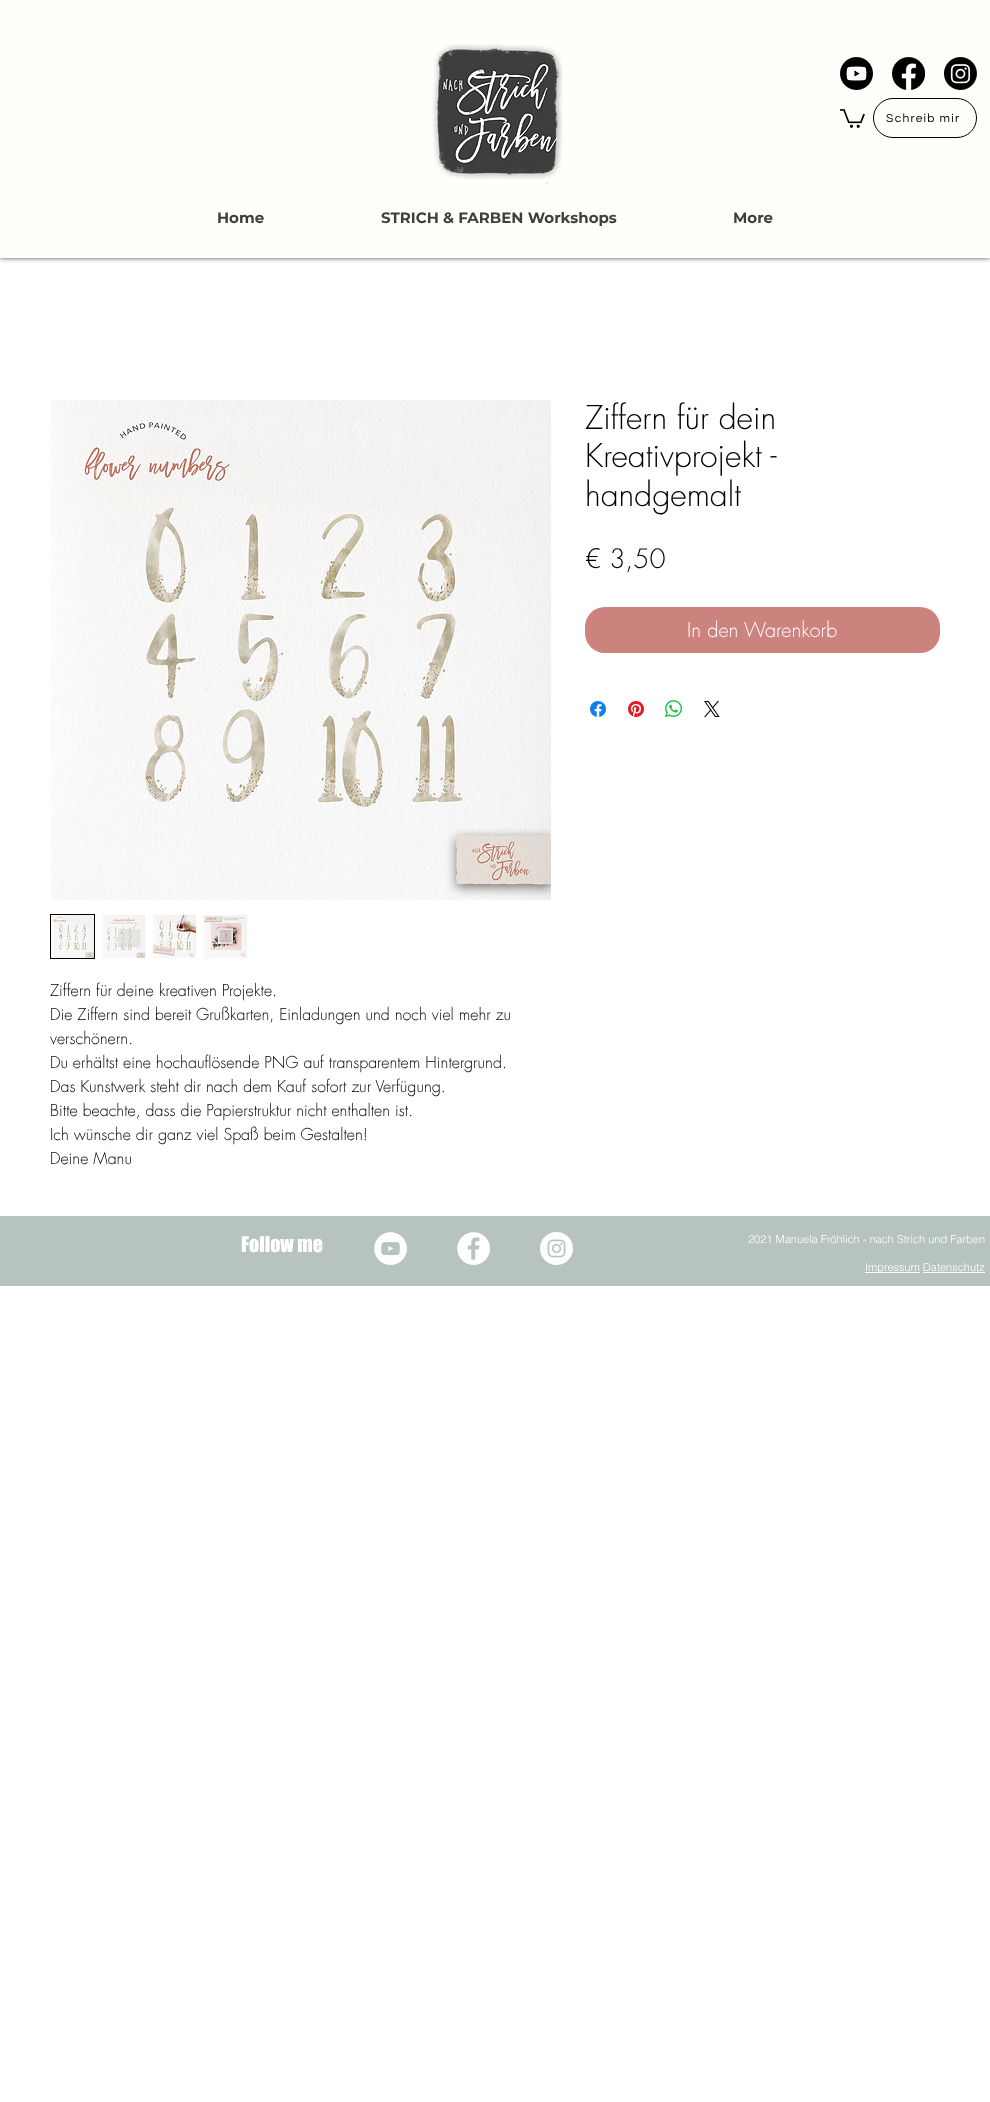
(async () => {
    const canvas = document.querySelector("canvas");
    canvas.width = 990;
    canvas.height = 2102;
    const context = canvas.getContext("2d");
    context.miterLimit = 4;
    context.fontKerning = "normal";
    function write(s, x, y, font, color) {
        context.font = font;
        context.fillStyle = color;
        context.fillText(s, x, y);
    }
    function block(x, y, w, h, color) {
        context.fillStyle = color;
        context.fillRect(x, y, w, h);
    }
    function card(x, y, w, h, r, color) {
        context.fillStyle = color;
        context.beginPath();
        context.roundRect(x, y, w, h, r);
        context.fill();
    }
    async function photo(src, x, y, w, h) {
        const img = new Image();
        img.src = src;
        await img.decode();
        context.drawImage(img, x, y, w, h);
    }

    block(0, 0, 990, 2102, "rgb(255, 255, 255)");
    context.fillStyle = "rgba(0, 0, 0, 0.7)";
    context.filter = "blur(2.5px)";
    context.beginPath();
    context.rect(0, 0, 990, 258);
    context.fill();
    context.filter = "none";
    block(0, 0, 990, 258, "rgb(255, 254, 251)");
    await photo("media/1.png", 432, 44, 131, 140);
    await photo("media/2.png", 840, 57, 33, 33);
    await photo("media/3.png", 892, 57, 33, 33);
    await photo("media/4.png", 944, 57, 33, 33);
    await photo("media/5.png", 840, 109, 25, 19);
    context.beginPath();
    context.roundRect(873.5, 98.5, 103, 39, 19.5);
    context.strokeStyle = "rgb(0, 0, 0)";
    context.stroke();
    context.letterSpacing = "1.25px";
    write("Schreib mir", 886, 122, "12px Questrial", "rgb(0, 0, 0)");
    context.letterSpacing = "0px";
    write("Home", 217, 223, "bold 15px Montserrat", "rgb(61, 63, 62)");
    write("STRICH & FARBEN Workshops", 381, 223, "bold 15px Montserrat", "rgb(61, 63, 62)");
    write("More", 733, 223, "bold 15px Montserrat", "rgb(61, 63, 62)");
    write("Ziffern für dein", 585, 429, "300 32px futura", "rgb(0, 0, 0)");
    write("Kreativprojekt -", 585, 467, "300 32px futura", "rgb(0, 0, 0)");
    write("handgemalt", 585, 506, "300 32px futura", "rgb(0, 0, 0)");
    write("€ 3,50", 585, 568, "300 26px futura", "rgb(0, 0, 0)");
    card(585, 607, 355, 46, 20, "rgb(204, 130, 125)");
    write("In den Warenkorb", 687, 637, "300 20px futura", "rgb(255, 255, 255)");
    await photo("media/6.png", 590, 701, 16, 16);
    await photo("media/7.png", 628, 701, 16, 16);
    await photo("media/8.png", 665, 700, 17, 17);
    await photo("media/9.png", 704, 701, 16, 16);
    context.strokeStyle = "rgb(255, 254, 251)";
    context.strokeRect(50.5, 399.5, 501, 501);
    await photo("media/10.png", 51, 400, 500, 500);
    context.strokeStyle = "rgb(0, 0, 0)";
    context.strokeRect(50.5, 914.5, 44, 44);
    await photo("media/11.png", 51, 915, 43, 43);
    block(101, 914, 45, 45, "rgb(255, 254, 251)");
    await photo("media/12.png", 102, 915, 43, 43);
    block(152, 914, 45, 45, "rgb(255, 254, 251)");
    await photo("media/13.png", 153, 915, 43, 43);
    block(203, 914, 45, 45, "rgb(255, 254, 251)");
    await photo("media/14.png", 204, 915, 43, 43);
    write("Ziffern für deine kreativen Projekte.", 50, 996, "300 16px futura", "rgb(0, 0, 0)");
    write("Die Ziffern sind bereit Grußkarten, Einladungen und noch viel mehr zu", 50, 1020, "300 16px futura", "rgb(0, 0, 0)");
    write("verschönern.", 50, 1044, "300 16px futura", "rgb(0, 0, 0)");
    write("Du erhältst eine hochauflösende PNG auf transparentem Hintergrund.", 50, 1068, "300 16px futura", "rgb(0, 0, 0)");
    write("Das Kunstwerk steht dir nach dem Kauf sofort zur Verfügung.", 50, 1092, "300 16px futura", "rgb(0, 0, 0)");
    write("Bitte beachte, dass die Papierstruktur nicht enthalten ist.", 50, 1116, "300 16px futura", "rgb(0, 0, 0)");
    write("Ich wünsche dir ganz viel Spaß beim Gestalten!", 50, 1140, "300 16px futura", "rgb(0, 0, 0)");
    write("Deine Manu", 50, 1164, "300 16px futura", "rgb(0, 0, 0)");
    block(0, 1216, 990, 70, "rgb(182, 196, 189)");
    write("Follow me", 241, 1252, "20px 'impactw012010'", "rgb(255, 255, 255)");
    await photo("media/15.png", 374, 1232, 33, 33);
    await photo("media/16.png", 457, 1232, 33, 33);
    await photo("media/17.png", 540, 1232, 33, 33);
    write("2021 Manuela Fröhlich - nach Strich und Farben", 748, 1243, "300 11px helvetica", "rgb(255, 255, 255)");
    block(865, 1272, 55, 1, "rgb(255, 255, 255)");
    write("Impressum Datenschutz", 865, 1271, "300 11px helvetica", "rgb(255, 255, 255)");
    block(923, 1272, 62, 1, "rgb(255, 255, 255)");
})();
